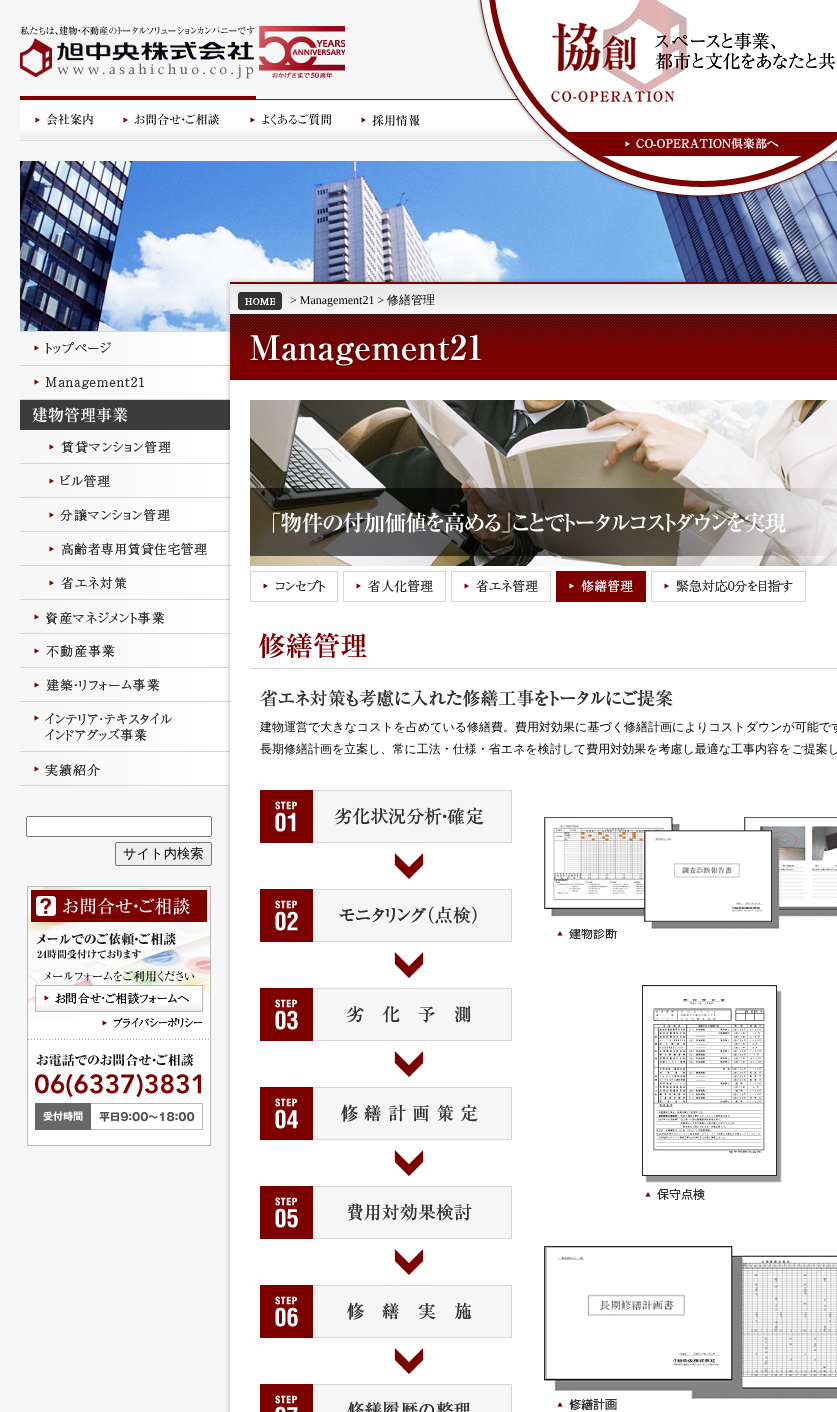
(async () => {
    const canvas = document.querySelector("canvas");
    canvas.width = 837;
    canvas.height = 1412;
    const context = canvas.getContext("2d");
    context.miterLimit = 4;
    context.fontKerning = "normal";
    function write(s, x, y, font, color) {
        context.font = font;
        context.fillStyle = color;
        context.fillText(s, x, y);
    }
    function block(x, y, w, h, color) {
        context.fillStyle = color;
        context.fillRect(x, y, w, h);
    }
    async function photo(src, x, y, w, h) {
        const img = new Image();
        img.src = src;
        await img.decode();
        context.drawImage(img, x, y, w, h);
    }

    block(0, 0, 837, 1412, "rgb(246, 246, 246)");
    await photo("media/1.png", 20, 161, 817, 170);
    await photo("media/2.png", 20, 96, 535, 45);
    await photo("media/3.png", 20, 26, 325, 53);
    await photo("media/4.png", 35, 113, 58, 12);
    await photo("media/5.png", 123, 113, 97, 12);
    await photo("media/6.png", 250, 113, 81, 12);
    await photo("media/7.png", 361, 114, 59, 12);
    await photo("media/8.png", 477, 0, 360, 200);
    await photo("media/9.png", 226, 278, 611, 36);
    await photo("media/10.png", 238, 292, 44, 18);
    write("> Management21 >", 290, 304, "12px Liberation Serif", "rgb(0, 0, 0)");
    write("修繕管理", 387, 304, "500 12px WenQuanYi Zen Hei", "rgb(0, 0, 0)");
    await photo("media/11.png", 226, 314, 611, 1098);
    await photo("media/12.png", 230, 314, 607, 66);
    await photo("media/13.png", 250, 400, 587, 166);
    await photo("media/14.png", 250, 571, 88, 31);
    await photo("media/15.png", 343, 571, 103, 31);
    await photo("media/16.png", 451, 571, 100, 31);
    await photo("media/17.png", 556, 571, 90, 31);
    await photo("media/18.png", 651, 571, 155, 31);
    await photo("media/19.png", 250, 632, 587, 37);
    await photo("media/20.png", 260, 689, 413, 18);
    write("建物運営で大きなコストを占めている修繕費。費用対効果に基づく修繕計画によりコストダウンが可能です", 260, 731, "500 12px WenQuanYi Zen Hei", "rgb(0, 0, 0)");
    write("長期修繕計画を立案し、常に工法・仕様・省エネを検討して費用対効果を考慮し最適な工事内容をご提案し", 260, 753, "500 12px WenQuanYi Zen Hei", "rgb(0, 0, 0)");
    await photo("media/21.png", 260, 790, 252, 622);
    await photo("media/22.png", 544, 817, 293, 123);
    await photo("media/23.png", 642, 985, 140, 216);
    await photo("media/24.png", 544, 1246, 293, 165);
    await photo("media/25.png", 20, 331, 210, 35);
    await photo("media/26.png", 20, 366, 210, 34);
    await photo("media/27.png", 20, 400, 210, 30);
    await photo("media/28.png", 20, 430, 210, 34);
    await photo("media/29.png", 20, 464, 210, 34);
    await photo("media/30.png", 20, 498, 210, 34);
    await photo("media/31.png", 20, 532, 210, 34);
    await photo("media/32.png", 20, 566, 210, 34);
    await photo("media/33.png", 20, 600, 210, 34);
    await photo("media/34.png", 20, 634, 210, 34);
    await photo("media/35.png", 20, 668, 210, 34);
    await photo("media/36.png", 20, 702, 210, 50);
    await photo("media/37.png", 20, 752, 210, 34);
    context.fillStyle = "rgb(255, 255, 255)";
    context.beginPath();
    context.roundRect(26.5, 816.5, 185, 20, 1.5);
    context.fill();
    context.strokeStyle = "rgb(118, 118, 118)";
    context.stroke();
    context.fillStyle = "rgb(239, 239, 239)";
    context.beginPath();
    context.roundRect(115.5, 842.5, 96, 23, 1.5);
    context.fill();
    context.stroke();
    write("サイト内検索", 123, 858, "500 13.25px WenQuanYi Zen Hei", "rgb(0, 0, 0)");
    block(28, 1018, 182, 127, "rgb(255, 255, 255)");
    await photo("media/38.png", 28, 887, 182, 131);
    context.strokeStyle = "rgb(184, 184, 184)";
    context.strokeRect(27.5, 886.5, 183, 259);
    await photo("media/39.png", 31, 890, 176, 92);
    await photo("media/40.png", 35, 985, 168, 27);
    await photo("media/41.png", 102, 1018, 101, 10);
    await photo("media/42.png", 28, 1039, 181, 91);
})();
